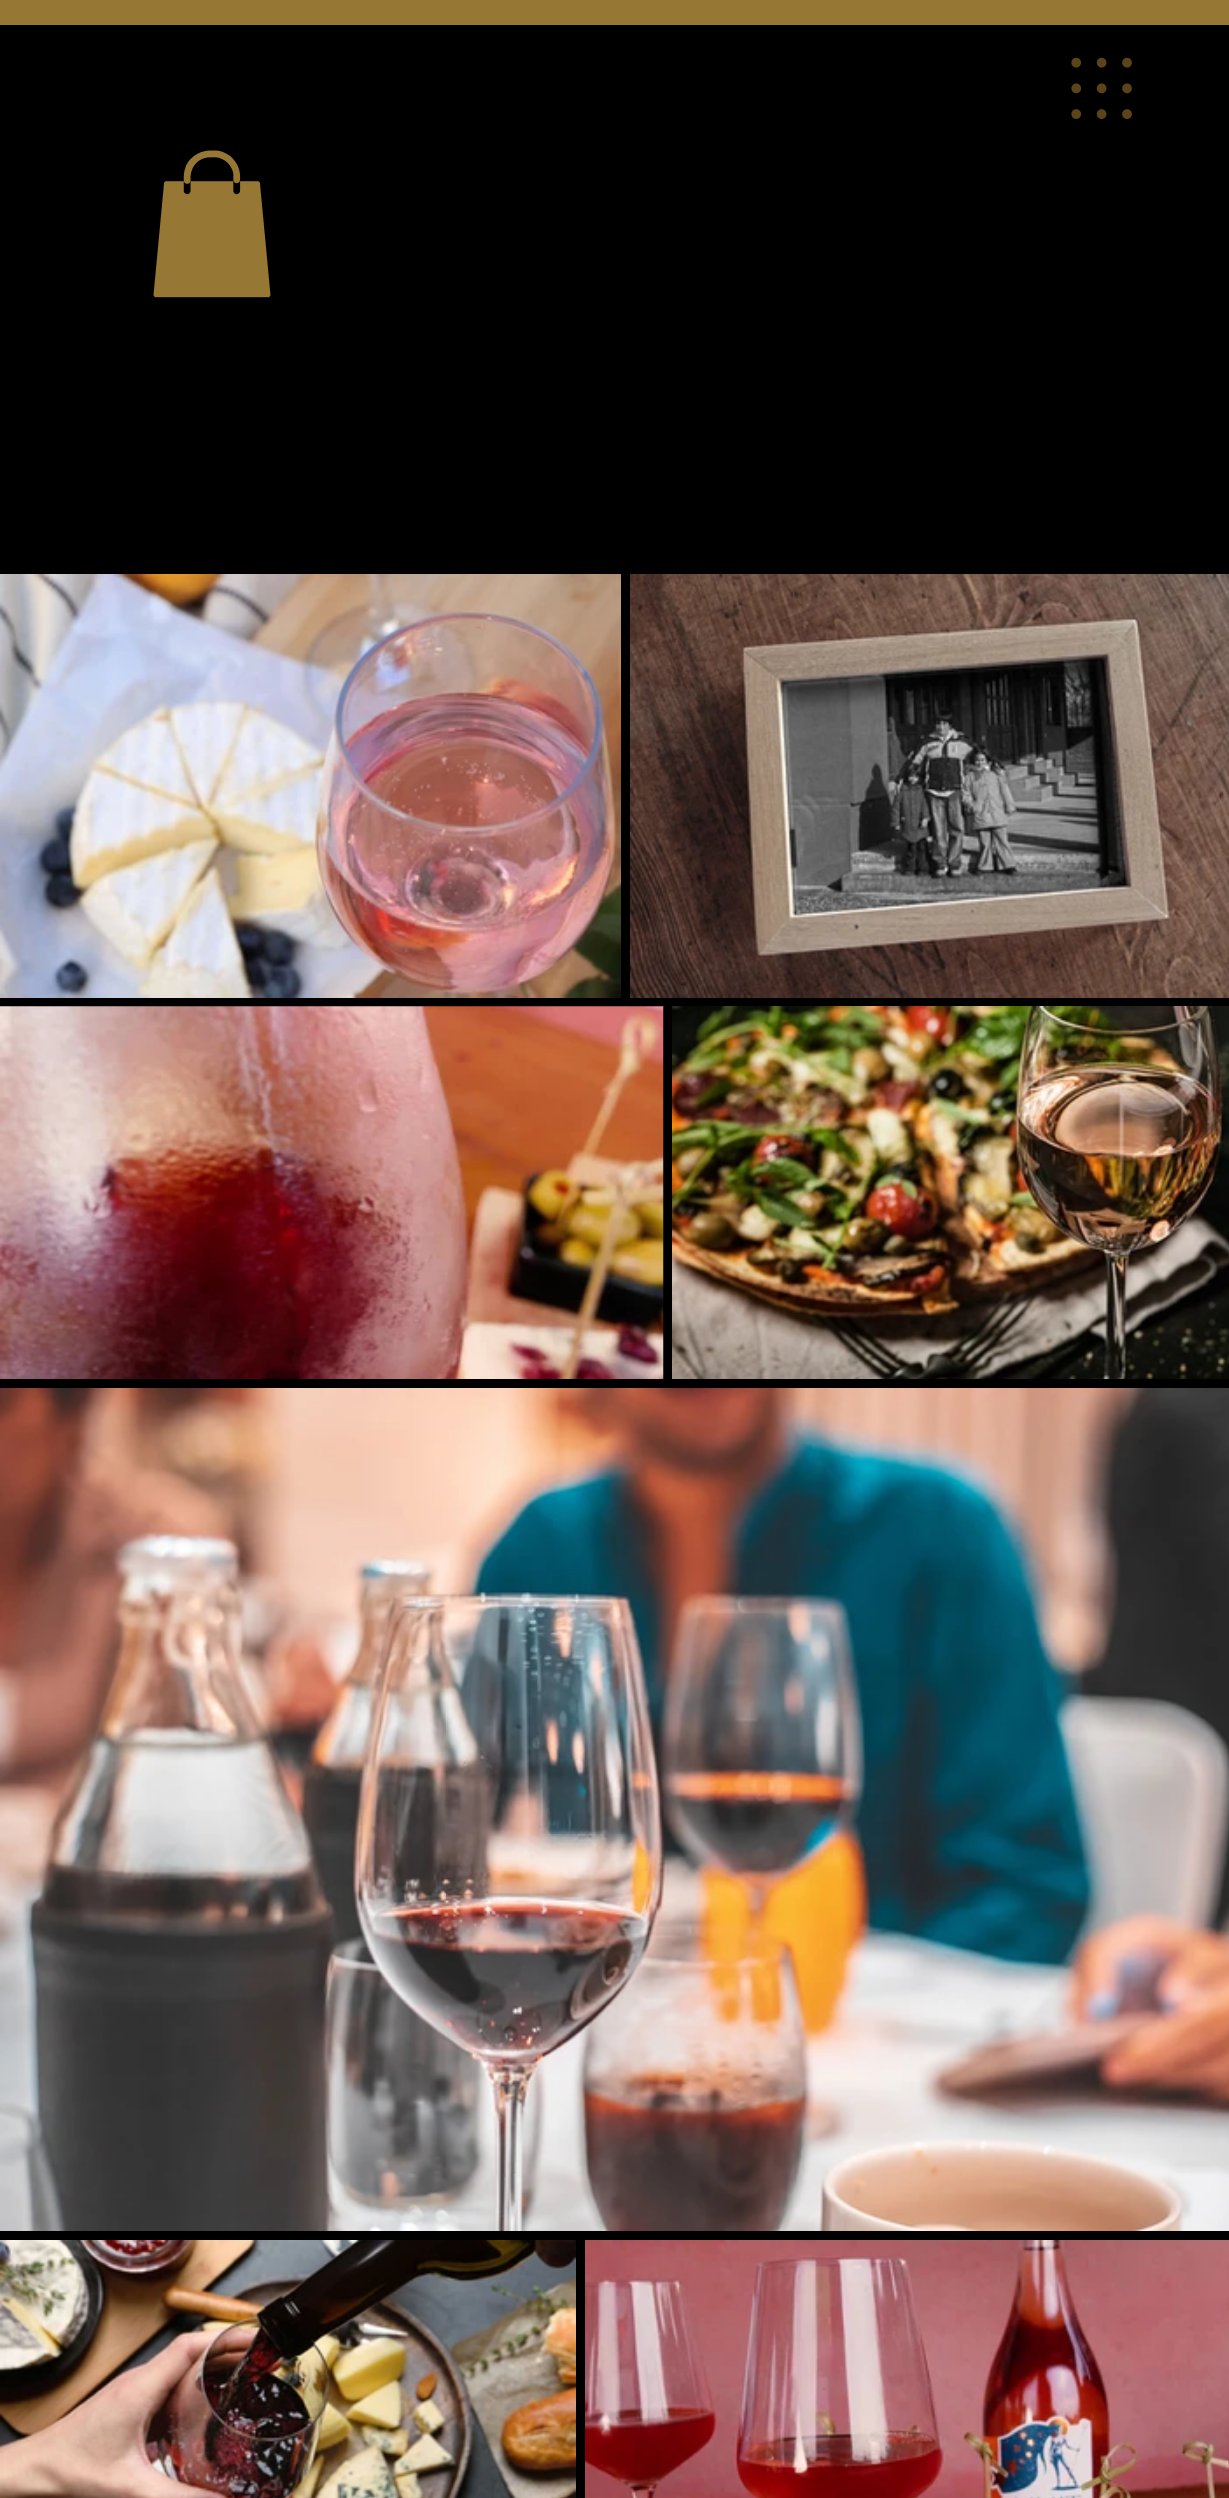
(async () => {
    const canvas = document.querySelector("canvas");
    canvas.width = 1229;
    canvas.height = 2498;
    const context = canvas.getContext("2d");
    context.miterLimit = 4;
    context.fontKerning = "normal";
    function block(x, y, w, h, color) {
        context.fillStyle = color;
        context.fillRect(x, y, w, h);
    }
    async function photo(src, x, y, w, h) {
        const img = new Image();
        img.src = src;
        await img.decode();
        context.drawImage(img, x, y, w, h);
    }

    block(0, 0, 1229, 2498, "rgb(0, 0, 0)");
    block(0, 0, 1229, 25, "rgb(150, 119, 51)");
    await photo("media/1.png", 1071, 57, 61, 62);
    await photo("media/2.png", 153, 150, 118, 148);
    await photo("media/3.png", 0, 574, 621, 424);
    await photo("media/4.png", 630, 574, 599, 424);
    await photo("media/5.png", 0, 1006, 664, 373);
    await photo("media/6.png", 672, 1006, 557, 373);
    await photo("media/7.png", 0, 1388, 1229, 843);
    await photo("media/8.png", 0, 2240, 576, 258);
    await photo("media/9.png", 585, 2240, 644, 258);
})();
